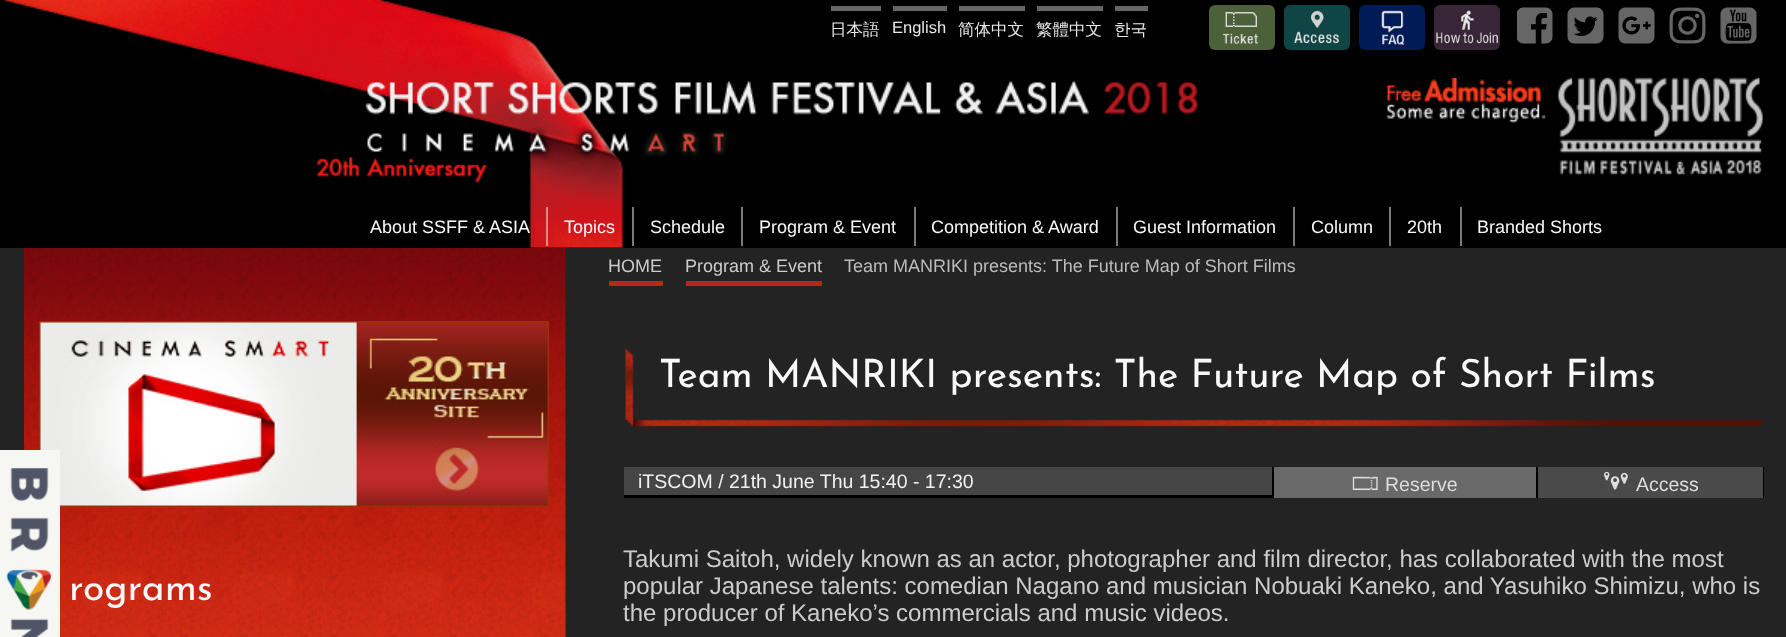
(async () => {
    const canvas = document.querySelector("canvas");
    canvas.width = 1786;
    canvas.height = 637;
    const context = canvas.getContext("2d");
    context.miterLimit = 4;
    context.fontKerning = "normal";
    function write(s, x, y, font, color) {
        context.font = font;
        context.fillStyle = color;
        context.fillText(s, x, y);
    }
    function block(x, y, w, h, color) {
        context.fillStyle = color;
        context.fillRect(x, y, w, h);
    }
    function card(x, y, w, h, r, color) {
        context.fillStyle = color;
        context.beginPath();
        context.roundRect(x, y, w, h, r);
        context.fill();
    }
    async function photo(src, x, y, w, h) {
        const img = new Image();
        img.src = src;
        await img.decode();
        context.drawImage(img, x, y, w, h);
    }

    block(0, 0, 1786, 637, "rgb(35, 35, 35)");
    block(0, 0, 1786, 248, "rgb(0, 0, 0)");
    await photo("media/1.png", 3, 0, 620, 248);
    block(831, 6, 50, 5, "rgb(102, 102, 102)");
    write("日本語", 830, 35, "500 16.5px WenQuanYi Zen Hei", "rgb(232, 232, 232)");
    block(893, 6, 54, 5, "rgb(102, 102, 102)");
    write("English", 892, 33, "16.5px Liberation Sans", "rgb(232, 232, 232)");
    block(959, 6, 66, 5, "rgb(102, 102, 102)");
    write("简体中文", 958, 35, "500 16.5px WenQuanYi Zen Hei", "rgb(232, 232, 232)");
    block(1037, 6, 66, 5, "rgb(102, 102, 102)");
    write("繁體中文", 1036, 35, "500 16.5px WenQuanYi Zen Hei", "rgb(232, 232, 232)");
    block(1115, 6, 33, 5, "rgb(102, 102, 102)");
    write("한국", 1114, 35, "500 16.5px WenQuanYi Zen Hei", "rgb(232, 232, 232)");
    await photo("media/2.png", 365, 80, 833, 80);
    await photo("media/3.png", 1558, 77, 205, 98);
    await photo("media/4.png", 1386, 78, 160, 45);
    await photo("media/5.png", 1517, 7, 36, 37);
    await photo("media/6.png", 1567, 7, 37, 37);
    await photo("media/7.png", 1618, 7, 37, 37);
    await photo("media/8.png", 1669, 7, 37, 37);
    await photo("media/9.png", 1720, 7, 37, 37);
    card(1209, 5, 66, 45, 6, "rgb(76, 96, 57)");
    await photo("media/10.png", 1222, 12, 36, 33);
    card(1284, 5, 66, 45, 6, "rgb(16, 69, 69)");
    await photo("media/11.png", 1294, 10, 45, 34);
    card(1359, 5, 66, 45, 6, "rgb(0, 27, 85)");
    await photo("media/12.png", 1381, 10, 23, 35);
    card(1434, 5, 66, 45, 6, "rgb(56, 38, 56)");
    await photo("media/13.png", 1436, 10, 62, 34);
    block(546, 207, 2, 39, "rgba(244, 244, 244, 0.5)");
    write("About SSFF & ASIA", 370, 233, "18px Liberation Sans", "rgb(249, 249, 249)");
    block(632, 207, 2, 39, "rgb(122, 122, 122)");
    write("Topics", 564, 233, "18px Liberation Sans", "rgb(249, 249, 249)");
    block(741, 207, 2, 39, "rgb(122, 122, 122)");
    write("Schedule", 650, 233, "18px Liberation Sans", "rgb(249, 249, 249)");
    block(914, 207, 2, 39, "rgb(122, 122, 122)");
    write("Program & Event", 759, 233, "18px Liberation Sans", "rgb(249, 249, 249)");
    block(1116, 207, 2, 39, "rgb(122, 122, 122)");
    write("Competition & Award", 931, 233, "18px Liberation Sans", "rgb(249, 249, 249)");
    block(1293, 207, 2, 39, "rgb(122, 122, 122)");
    write("Guest Information", 1133, 233, "18px Liberation Sans", "rgb(249, 249, 249)");
    block(1389, 207, 2, 39, "rgb(122, 122, 122)");
    write("Column", 1311, 233, "18px Liberation Sans", "rgb(249, 249, 249)");
    block(1460, 207, 2, 39, "rgb(122, 122, 122)");
    write("20th", 1407, 233, "18px Liberation Sans", "rgb(249, 249, 249)");
    write("Branded Shorts", 1477, 233, "18px Liberation Sans", "rgb(249, 249, 249)");
    await photo("media/15.png", 24, 248, 542, 389);
    context.strokeStyle = "rgb(153, 51, 0)";
    context.lineWidth = 2;
    context.strokeRect(40, 322, 508, 184);
    await photo("media/16.png", 40, 322, 508, 184);
    await photo("media/14.png", 0, 450, 60, 187);
    write("HOME", 608, 272, "18px Liberation Sans", "rgb(204, 204, 204)");
    block(609, 281, 54, 5, "rgb(181, 40, 19)");
    write("Program & Event", 685, 272, "18px Liberation Sans", "rgb(204, 204, 204)");
    block(686, 281, 136, 5, "rgb(181, 40, 19)");
    write("Team MANRIKI presents: The Future Map of Short Films", 844, 272, "18px Liberation Sans", "rgb(188, 188, 188)");
    write("rograms", 69, 600, "39px Josefin Sans", "rgb(249, 249, 249)");
    await photo("media/17.png", 625, 348, 1139, 79);
    write("Team MANRIKI presents: The Future Map of Short Films", 659, 387, "39px Josefin Sans", "rgb(249, 249, 249)");
    block(624, 467, 1140, 31, "rgb(0, 0, 0)");
    block(624, 467, 648, 28, "rgb(69, 69, 69)");
    write("iTSCOM / 21th June Thu 15:40 - 17:30", 638, 488, "19.5px Liberation Sans", "rgb(241, 241, 241)");
    block(1274, 467, 262, 31, "rgb(105, 105, 105)");
    await photo("media/18.png", 1352, 476, 26, 15);
    write("Reserve", 1385, 491, "19.5px Liberation Sans", "rgb(222, 222, 222)");
    block(1538, 467, 225, 31, "rgb(74, 74, 74)");
    await photo("media/19.png", 1603, 471, 25, 19);
    write("Access", 1636, 491, "19.5px Liberation Sans", "rgb(222, 222, 222)");
    write("Takumi Saitoh, widely known as an actor, photographer and film director, has collaborated with the most", 623, 567, "24px Liberation Sans", "rgb(204, 204, 204)");
    write("popular Japanese talents: comedian Nagano and musician Nobuaki Kaneko, and Yasuhiko Shimizu, who is", 623, 594, "24px Liberation Sans", "rgb(204, 204, 204)");
    write("the producer of Kaneko’s commercials and music videos.", 623, 621, "24px Liberation Sans", "rgb(204, 204, 204)");
})();
